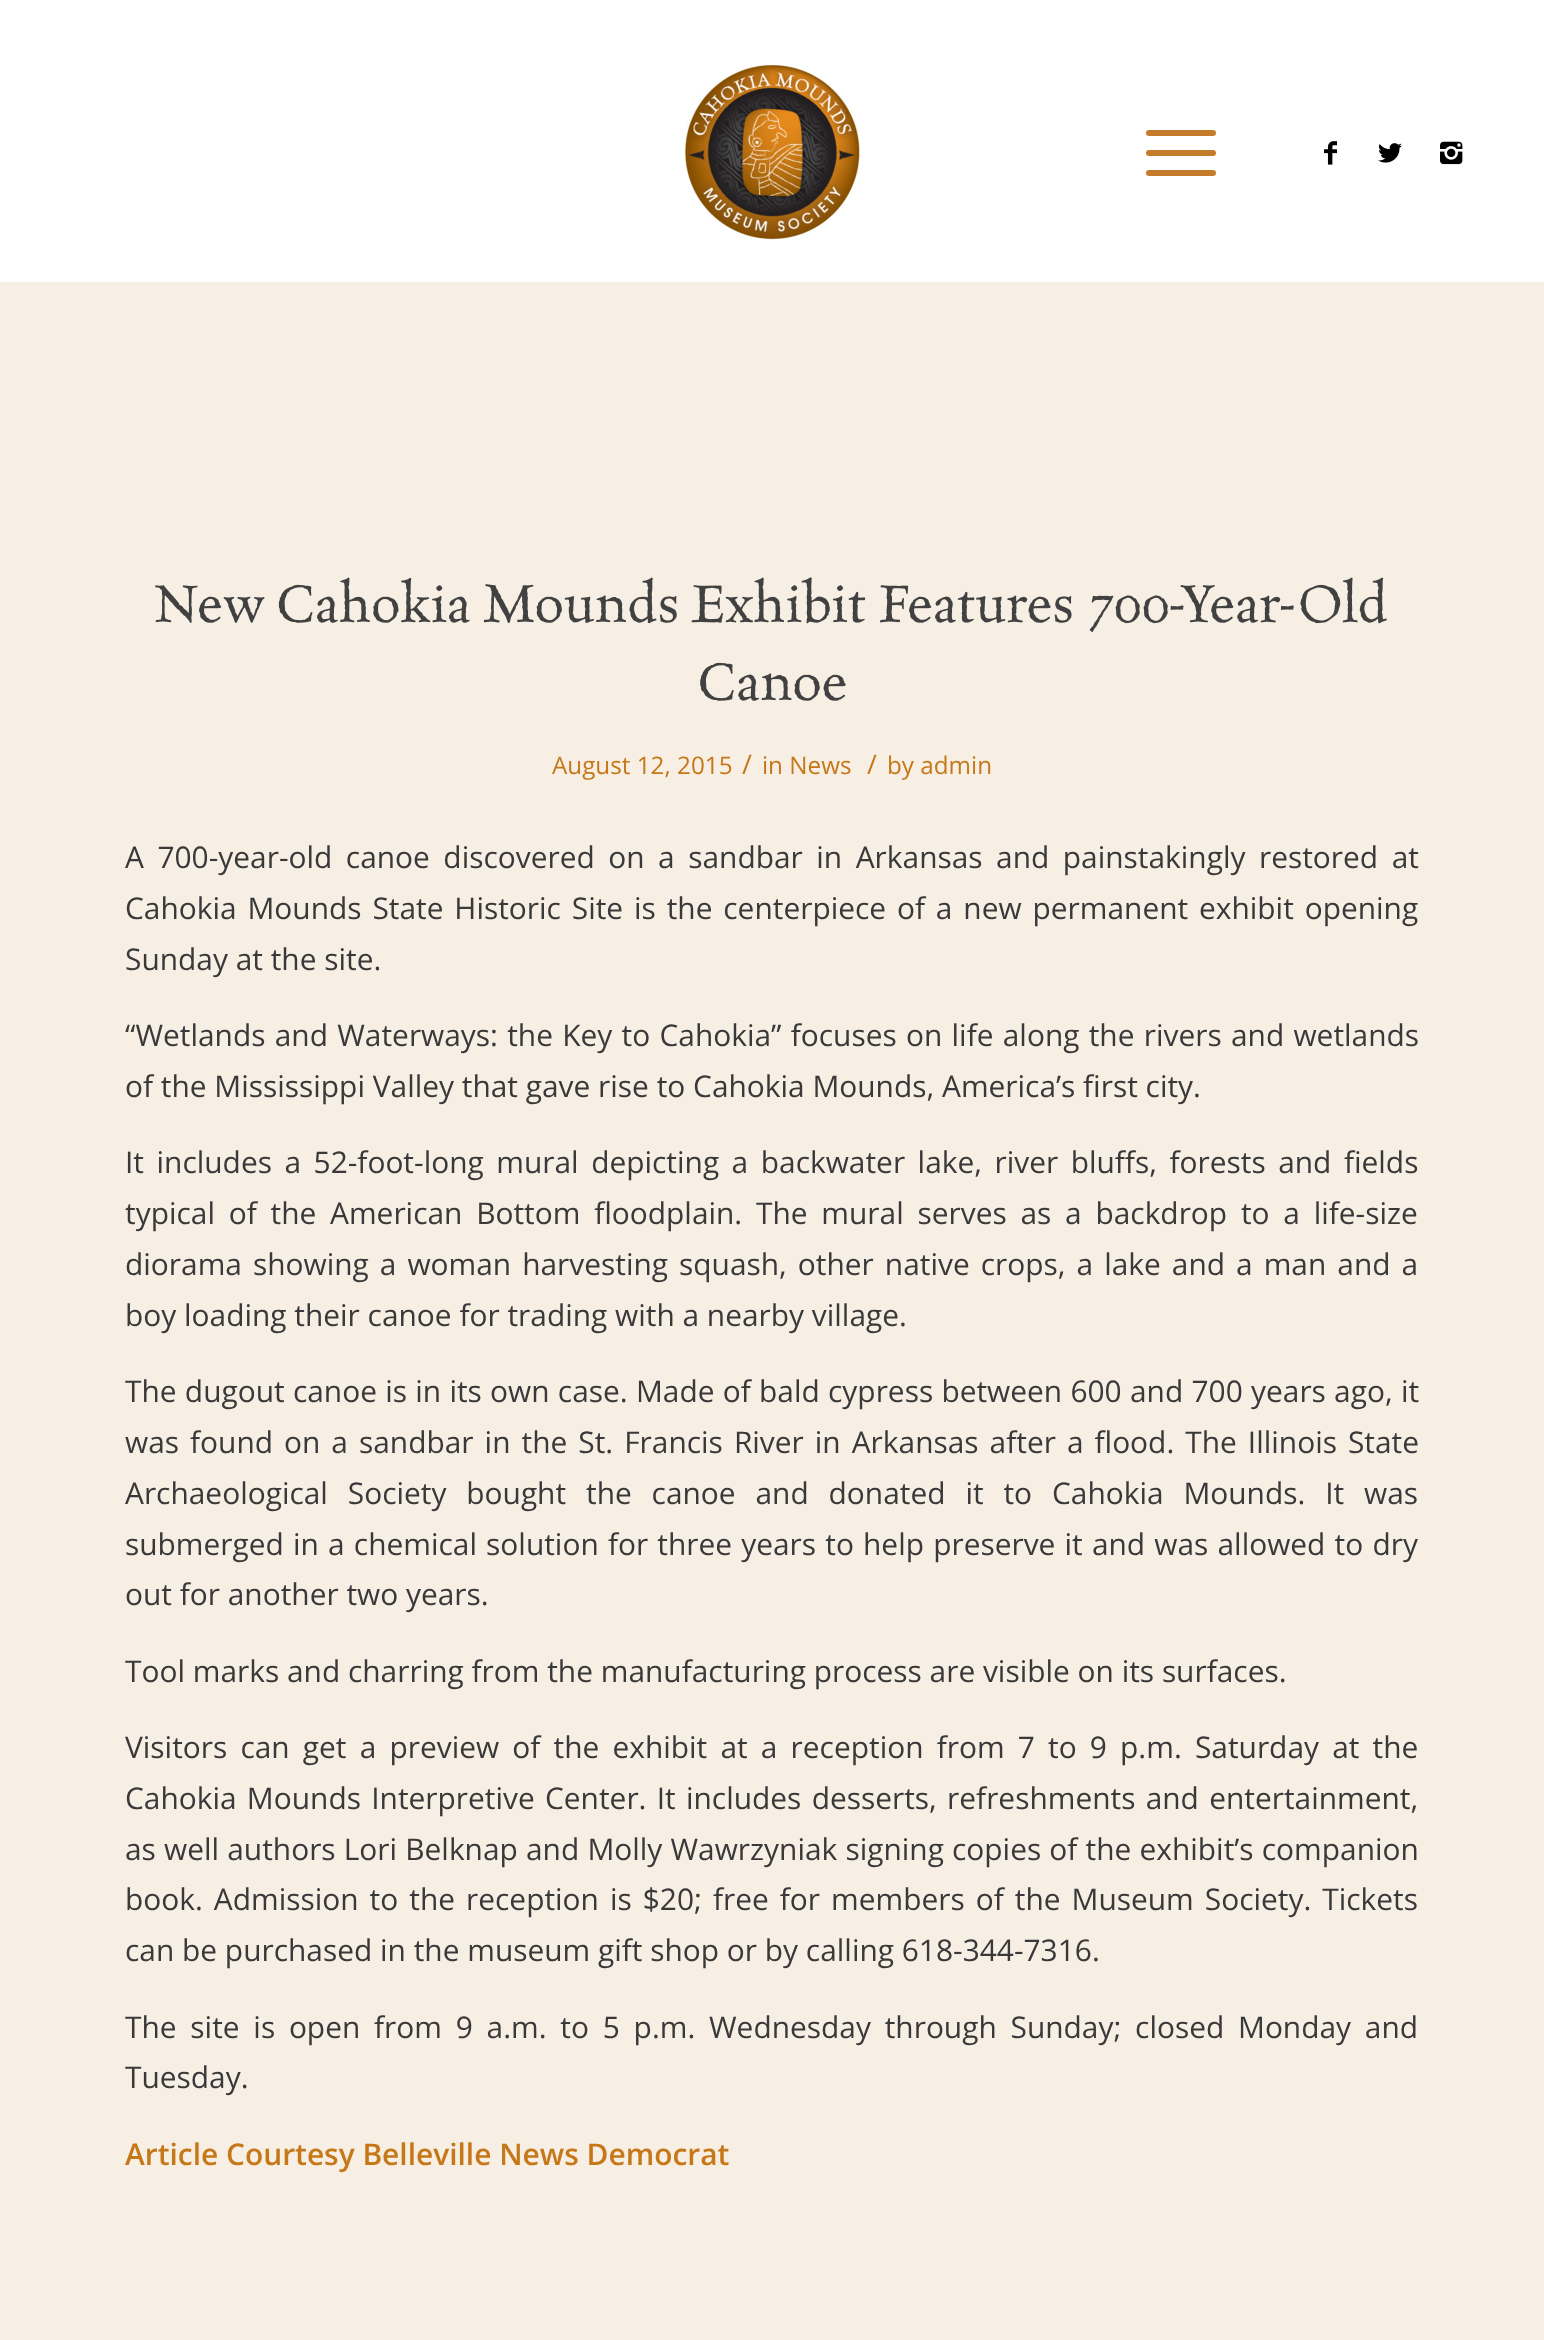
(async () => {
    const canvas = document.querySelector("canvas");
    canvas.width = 1544;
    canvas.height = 2340;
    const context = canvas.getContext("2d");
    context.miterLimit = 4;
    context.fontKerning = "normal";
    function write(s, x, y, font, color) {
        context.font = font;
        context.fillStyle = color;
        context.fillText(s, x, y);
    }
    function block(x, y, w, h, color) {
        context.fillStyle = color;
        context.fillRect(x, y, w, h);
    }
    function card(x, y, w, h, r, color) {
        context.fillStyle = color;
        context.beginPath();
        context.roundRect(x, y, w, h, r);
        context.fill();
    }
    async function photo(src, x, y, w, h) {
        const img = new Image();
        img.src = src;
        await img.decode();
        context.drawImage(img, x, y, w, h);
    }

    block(0, 0, 1544, 2340, "rgb(247, 238, 228)");
    block(0, 0, 1544, 282, "rgb(255, 255, 255)");
    await photo("media/1.png", 685, 64, 175, 176);
    card(1146, 150, 70, 6, 3, "rgb(196, 124, 42)");
    card(1146, 130, 70, 6, 3, "rgb(196, 124, 42)");
    card(1146, 170, 70, 6, 3, "rgb(196, 124, 42)");
    await photo("media/2.png", 1324, 141, 13, 24);
    await photo("media/3.png", 1378, 143, 24, 20);
    await photo("media/4.png", 1440, 141, 23, 24);
    await photo("media/5.png", 155, 577, 1232, 55);
    await photo("media/6.png", 700, 662, 146, 39);
    write("August 12, 2015", 552, 774, "24.25px Open Sans", "rgb(198, 120, 25)");
    write("/", 742, 774, "27px Open Sans", "rgb(198, 120, 25)");
    write("in News", 762, 774, "24.25px Open Sans", "rgb(198, 120, 25)");
    write("/", 867, 774, "27px Open Sans", "rgb(198, 120, 25)");
    write("by admin", 887, 774, "24.25px Open Sans", "rgb(198, 120, 25)");
    context.wordSpacing = "5.75px";
    write("A 700-year-old canoe discovered on a sandbar in Arkansas and painstakingly restored at", 125, 868, "29.9px Open Sans", "rgb(58, 57, 58)");
    context.wordSpacing = "3.1px";
    write("Cahokia Mounds State Historic Site is the centerpiece of a new permanent exhibit opening", 125, 919, "29.9px Open Sans", "rgb(58, 57, 58)");
    context.wordSpacing = "0px";
    write("Sunday at the site.", 125, 970, "29.9px Open Sans", "rgb(58, 57, 58)");
    context.wordSpacing = "1.5px";
    write("“Wetlands and Waterways: the Key to Cahokia” focuses on life along the rivers and wetlands", 125, 1046, "29.9px Open Sans", "rgb(58, 57, 58)");
    context.wordSpacing = "0px";
    write("of the Mississippi Valley that gave rise to Cahokia Mounds, America’s first city.", 125, 1097, "29.9px Open Sans", "rgb(58, 57, 58)");
    context.wordSpacing = "4.75px";
    write("It includes a 52-foot-long mural depicting a backwater lake, river bluffs, forests and fields", 125, 1173, "29.9px Open Sans", "rgb(58, 57, 58)");
    context.wordSpacing = "6px";
    write("typical of the American Bottom floodplain. The mural serves as a backdrop to a life-size", 125, 1224, "29.9px Open Sans", "rgb(58, 57, 58)");
    context.wordSpacing = "3.25px";
    write("diorama showing a woman harvesting squash, other native crops, a lake and a man and a", 125, 1275, "29.9px Open Sans", "rgb(58, 57, 58)");
    context.wordSpacing = "0px";
    write("boy loading their canoe for trading with a nearby village.", 125, 1326, "29.9px Open Sans", "rgb(58, 57, 58)");
    context.wordSpacing = "0.5px";
    write("The dugout canoe is in its own case. Made of bald cypress between 600 and 700 years ago, it", 125, 1402, "29.9px Open Sans", "rgb(58, 57, 58)");
    context.wordSpacing = "3.25px";
    write("was found on a sandbar in the St. Francis River in Arkansas after a flood. The Illinois State", 125, 1453, "29.9px Open Sans", "rgb(58, 57, 58)");
    context.wordSpacing = "12.1px";
    write("Archaeological Society bought the canoe and donated it to Cahokia Mounds. It was", 125, 1504, "29.9px Open Sans", "rgb(58, 57, 58)");
    context.wordSpacing = "1.4px";
    write("submerged in a chemical solution for three years to help preserve it and was allowed to dry", 125, 1555, "29.9px Open Sans", "rgb(58, 57, 58)");
    context.wordSpacing = "0px";
    write("out for another two years.", 125, 1605, "29.9px Open Sans", "rgb(58, 57, 58)");
    write("Tool marks and charring from the manufacturing process are visible on its surfaces.", 125, 1682, "29.9px Open Sans", "rgb(58, 57, 58)");
    context.wordSpacing = "5.4px";
    write("Visitors can get a preview of the exhibit at a reception from 7 to 9 p.m. Saturday at the", 125, 1758, "29.9px Open Sans", "rgb(58, 57, 58)");
    context.wordSpacing = "2.5px";
    write("Cahokia Mounds Interpretive Center. It includes desserts, refreshments and entertainment,", 125, 1809, "29.9px Open Sans", "rgb(58, 57, 58)");
    context.wordSpacing = "0.4px";
    write("as well authors Lori Belknap and Molly Wawrzyniak signing copies of the exhibit’s companion", 125, 1860, "29.9px Open Sans", "rgb(58, 57, 58)");
    context.wordSpacing = "3.25px";
    write("book. Admission to the reception is $20; free for members of the Museum Society. Tickets", 125, 1910, "29.9px Open Sans", "rgb(58, 57, 58)");
    context.wordSpacing = "0px";
    write("can be purchased in the museum gift shop or by calling 618-344-7316.", 125, 1961, "29.9px Open Sans", "rgb(58, 57, 58)");
    context.wordSpacing = "6px";
    write("The site is open from 9 a.m. to 5 p.m. Wednesday through Sunday; closed Monday and", 125, 2038, "29.9px Open Sans", "rgb(58, 57, 58)");
    context.wordSpacing = "0px";
    write("Tuesday.", 125, 2088, "29.9px Open Sans", "rgb(58, 57, 58)");
    write("Article Courtesy Belleville News Democrat", 125, 2165, "600 29.9px Open Sans", "rgb(198, 120, 25)");
})();
